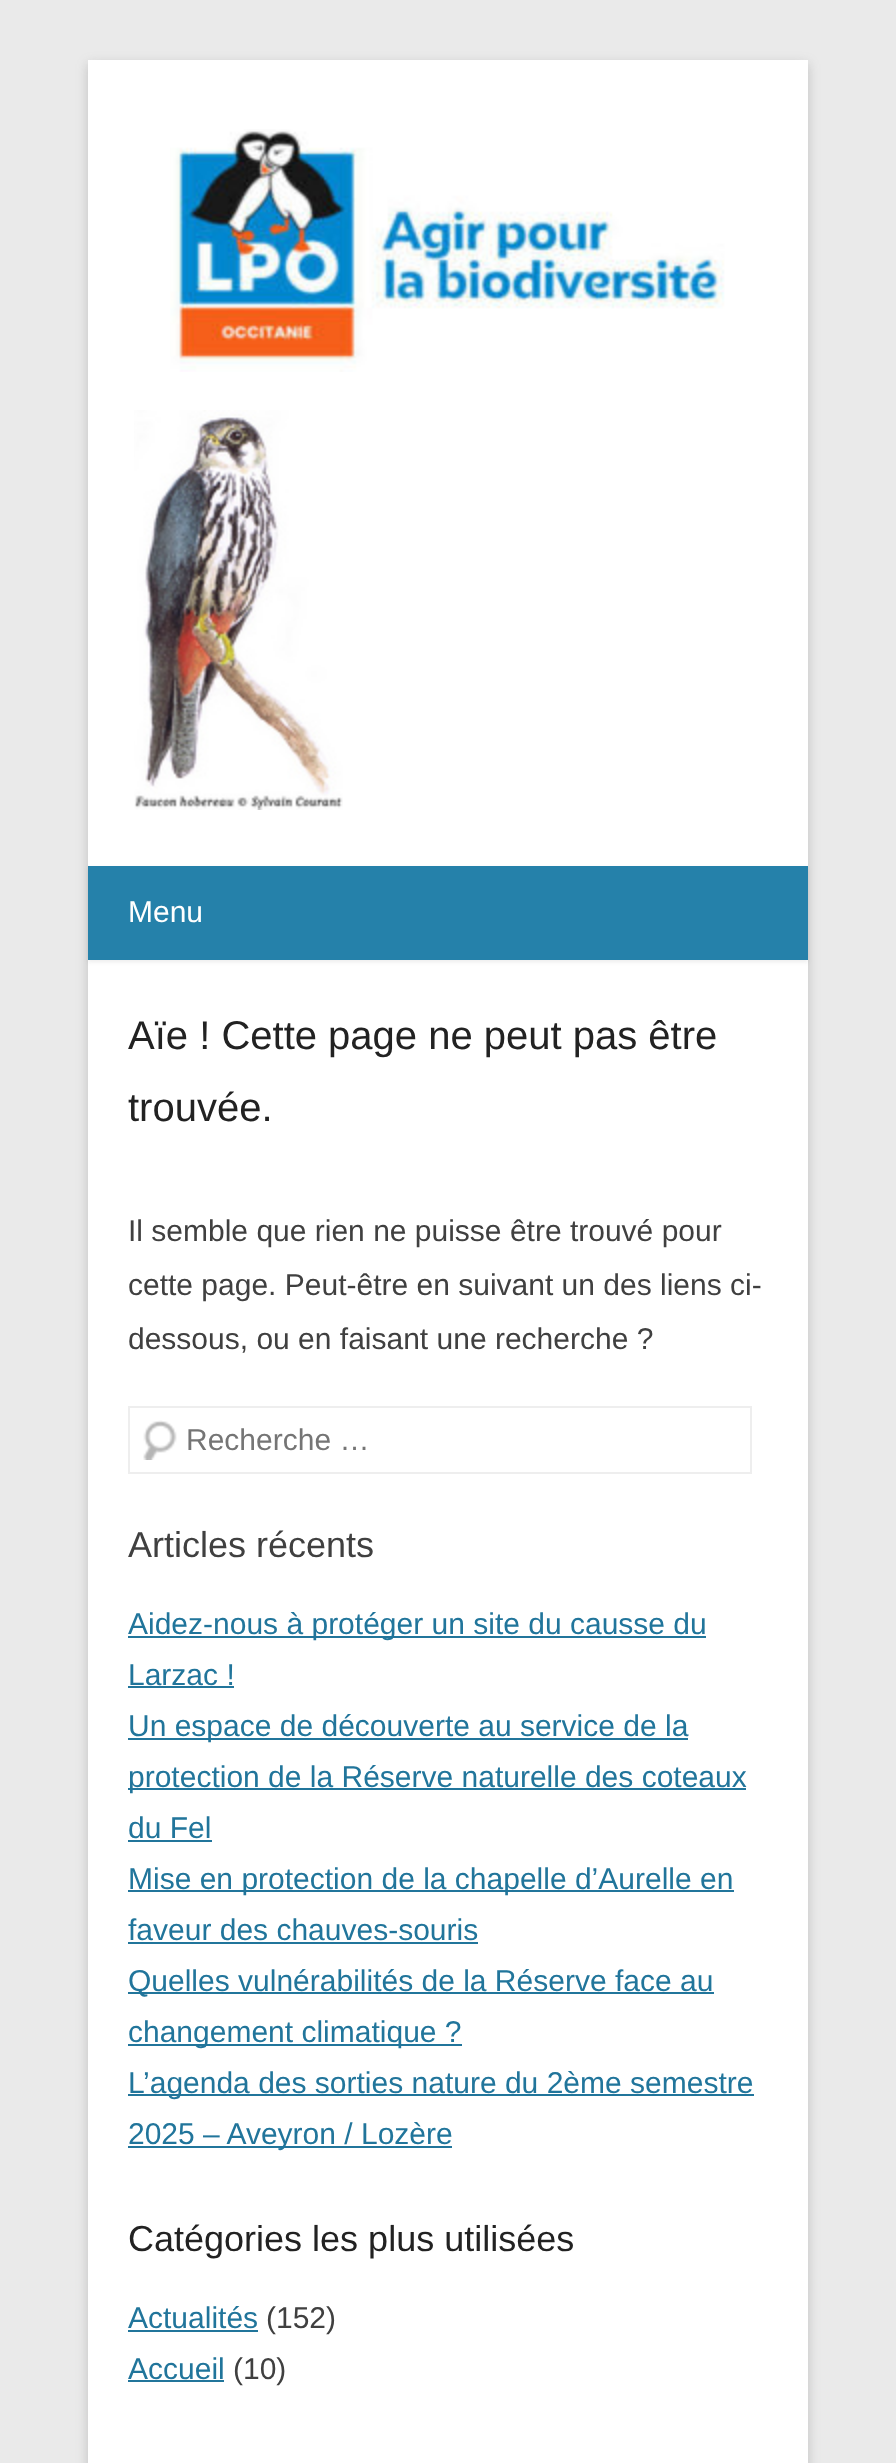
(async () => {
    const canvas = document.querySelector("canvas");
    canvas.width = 896;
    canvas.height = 2463;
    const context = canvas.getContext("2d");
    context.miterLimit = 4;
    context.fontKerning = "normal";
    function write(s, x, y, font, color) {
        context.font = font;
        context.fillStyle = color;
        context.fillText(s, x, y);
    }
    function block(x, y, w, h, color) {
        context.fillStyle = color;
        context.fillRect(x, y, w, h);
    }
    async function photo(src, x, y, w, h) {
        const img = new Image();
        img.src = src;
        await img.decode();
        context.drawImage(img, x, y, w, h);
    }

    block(0, 0, 896, 2463, "rgb(234, 234, 234)");
    context.fillStyle = "rgba(100, 100, 100, 0.3)";
    context.filter = "blur(6px)";
    context.beginPath();
    context.rect(88, 64, 720, 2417);
    context.fill();
    context.filter = "none";
    block(88, 60, 720, 2403, "rgb(255, 255, 255)");
    await photo("media/1.png", 170, 129, 555, 243);
    await photo("media/2.png", 134, 410, 209, 400);
    block(88, 866, 720, 94, "rgb(37, 129, 170)");
    context.save();
    context.beginPath();
    context.moveTo(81, 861);
    context.lineTo(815, 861);
    context.lineTo(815, 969);
    context.lineTo(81, 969);
    context.closePath();
    context.moveTo(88, 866);
    context.lineTo(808, 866);
    context.lineTo(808, 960);
    context.lineTo(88, 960);
    context.closePath();
    context.clip("evenodd");
    context.fillStyle = "rgba(64, 64, 64, 0.1)";
    context.filter = "blur(2px)";
    context.beginPath();
    context.rect(88, 868, 720, 94);
    context.fill();
    context.filter = "none";
    context.restore();
    write("Menu", 128, 922, "30px Liberation Sans", "rgb(255, 255, 255)");
    write("Aïe ! Cette page ne peut pas être", 128, 1049, "40px Liberation Sans", "rgb(34, 34, 34)");
    write("trouvée.", 128, 1121, "40px Liberation Sans", "rgb(34, 34, 34)");
    write("Il semble que rien ne puisse être trouvé pour", 128, 1241, "30px Liberation Sans", "rgb(64, 64, 64)");
    write("cette page. Peut-être en suivant un des liens ci-", 128, 1295, "30px Liberation Sans", "rgb(64, 64, 64)");
    write("dessous, ou en faisant une recherche ?", 128, 1349, "30px Liberation Sans", "rgb(64, 64, 64)");
    await photo("media/3.png", 143, 1420, 34, 40);
    context.strokeStyle = "rgb(238, 238, 238)";
    context.lineWidth = 2;
    context.strokeRect(129, 1407, 622, 66);
    write("Recherche …", 186, 1450, "30px Liberation Sans", "rgb(117, 117, 117)");
    write("Articles récents", 128, 1557, "36px Liberation Sans", "rgb(64, 64, 64)");
    block(128, 1636, 578, 2, "rgb(33, 117, 155)");
    write("Aidez-nous à protéger un site du causse du", 128, 1634, "30px Liberation Sans", "rgb(33, 117, 155)");
    write("Larzac !", 128, 1685, "30px Liberation Sans", "rgb(33, 117, 155)");
    block(128, 1686, 106, 2, "rgb(33, 117, 155)");
    block(128, 1738, 560, 2, "rgb(33, 117, 155)");
    write("Un espace de découverte au service de la", 128, 1736, "30px Liberation Sans", "rgb(33, 117, 155)");
    block(128, 1788, 618, 2, "rgb(33, 117, 155)");
    write("protection de la Réserve naturelle des coteaux", 128, 1787, "30px Liberation Sans", "rgb(33, 117, 155)");
    write("du Fel", 128, 1838, "30px Liberation Sans", "rgb(33, 117, 155)");
    block(128, 1840, 84, 2, "rgb(33, 117, 155)");
    block(128, 1890, 606, 2, "rgb(33, 117, 155)");
    write("Mise en protection de la chapelle d’Aurelle en", 128, 1889, "30px Liberation Sans", "rgb(33, 117, 155)");
    write("faveur des chauves-souris", 128, 1940, "30px Liberation Sans", "rgb(33, 117, 155)");
    block(128, 1942, 350, 2, "rgb(33, 117, 155)");
    block(128, 1992, 586, 2, "rgb(33, 117, 155)");
    write("Quelles vulnérabilités de la Réserve face au", 128, 1991, "30px Liberation Sans", "rgb(33, 117, 155)");
    block(128, 2044, 334, 2, "rgb(33, 117, 155)");
    write("changement climatique ?", 128, 2042, "30px Liberation Sans", "rgb(33, 117, 155)");
    block(128, 2094, 626, 2, "rgb(33, 117, 155)");
    write("L’agenda des sorties nature du 2ème semestre", 128, 2093, "30px Liberation Sans", "rgb(33, 117, 155)");
    block(128, 2146, 324, 2, "rgb(33, 117, 155)");
    write("2025 – Aveyron / Lozère", 128, 2144, "30px Liberation Sans", "rgb(33, 117, 155)");
    write("Catégories les plus utilisées", 128, 2251, "36px Liberation Sans", "rgb(34, 34, 34)");
    write("Actualités", 128, 2328, "30px Liberation Sans", "rgb(33, 117, 155)");
    block(128, 2330, 130, 2, "rgb(33, 117, 155)");
    write("(152)", 266, 2328, "30px Liberation Sans", "rgb(64, 64, 64)");
    write("Accueil", 128, 2379, "30px Liberation Sans", "rgb(33, 117, 155)");
    block(128, 2380, 96, 2, "rgb(33, 117, 155)");
    write("(10)", 233, 2379, "30px Liberation Sans", "rgb(64, 64, 64)");
})();
